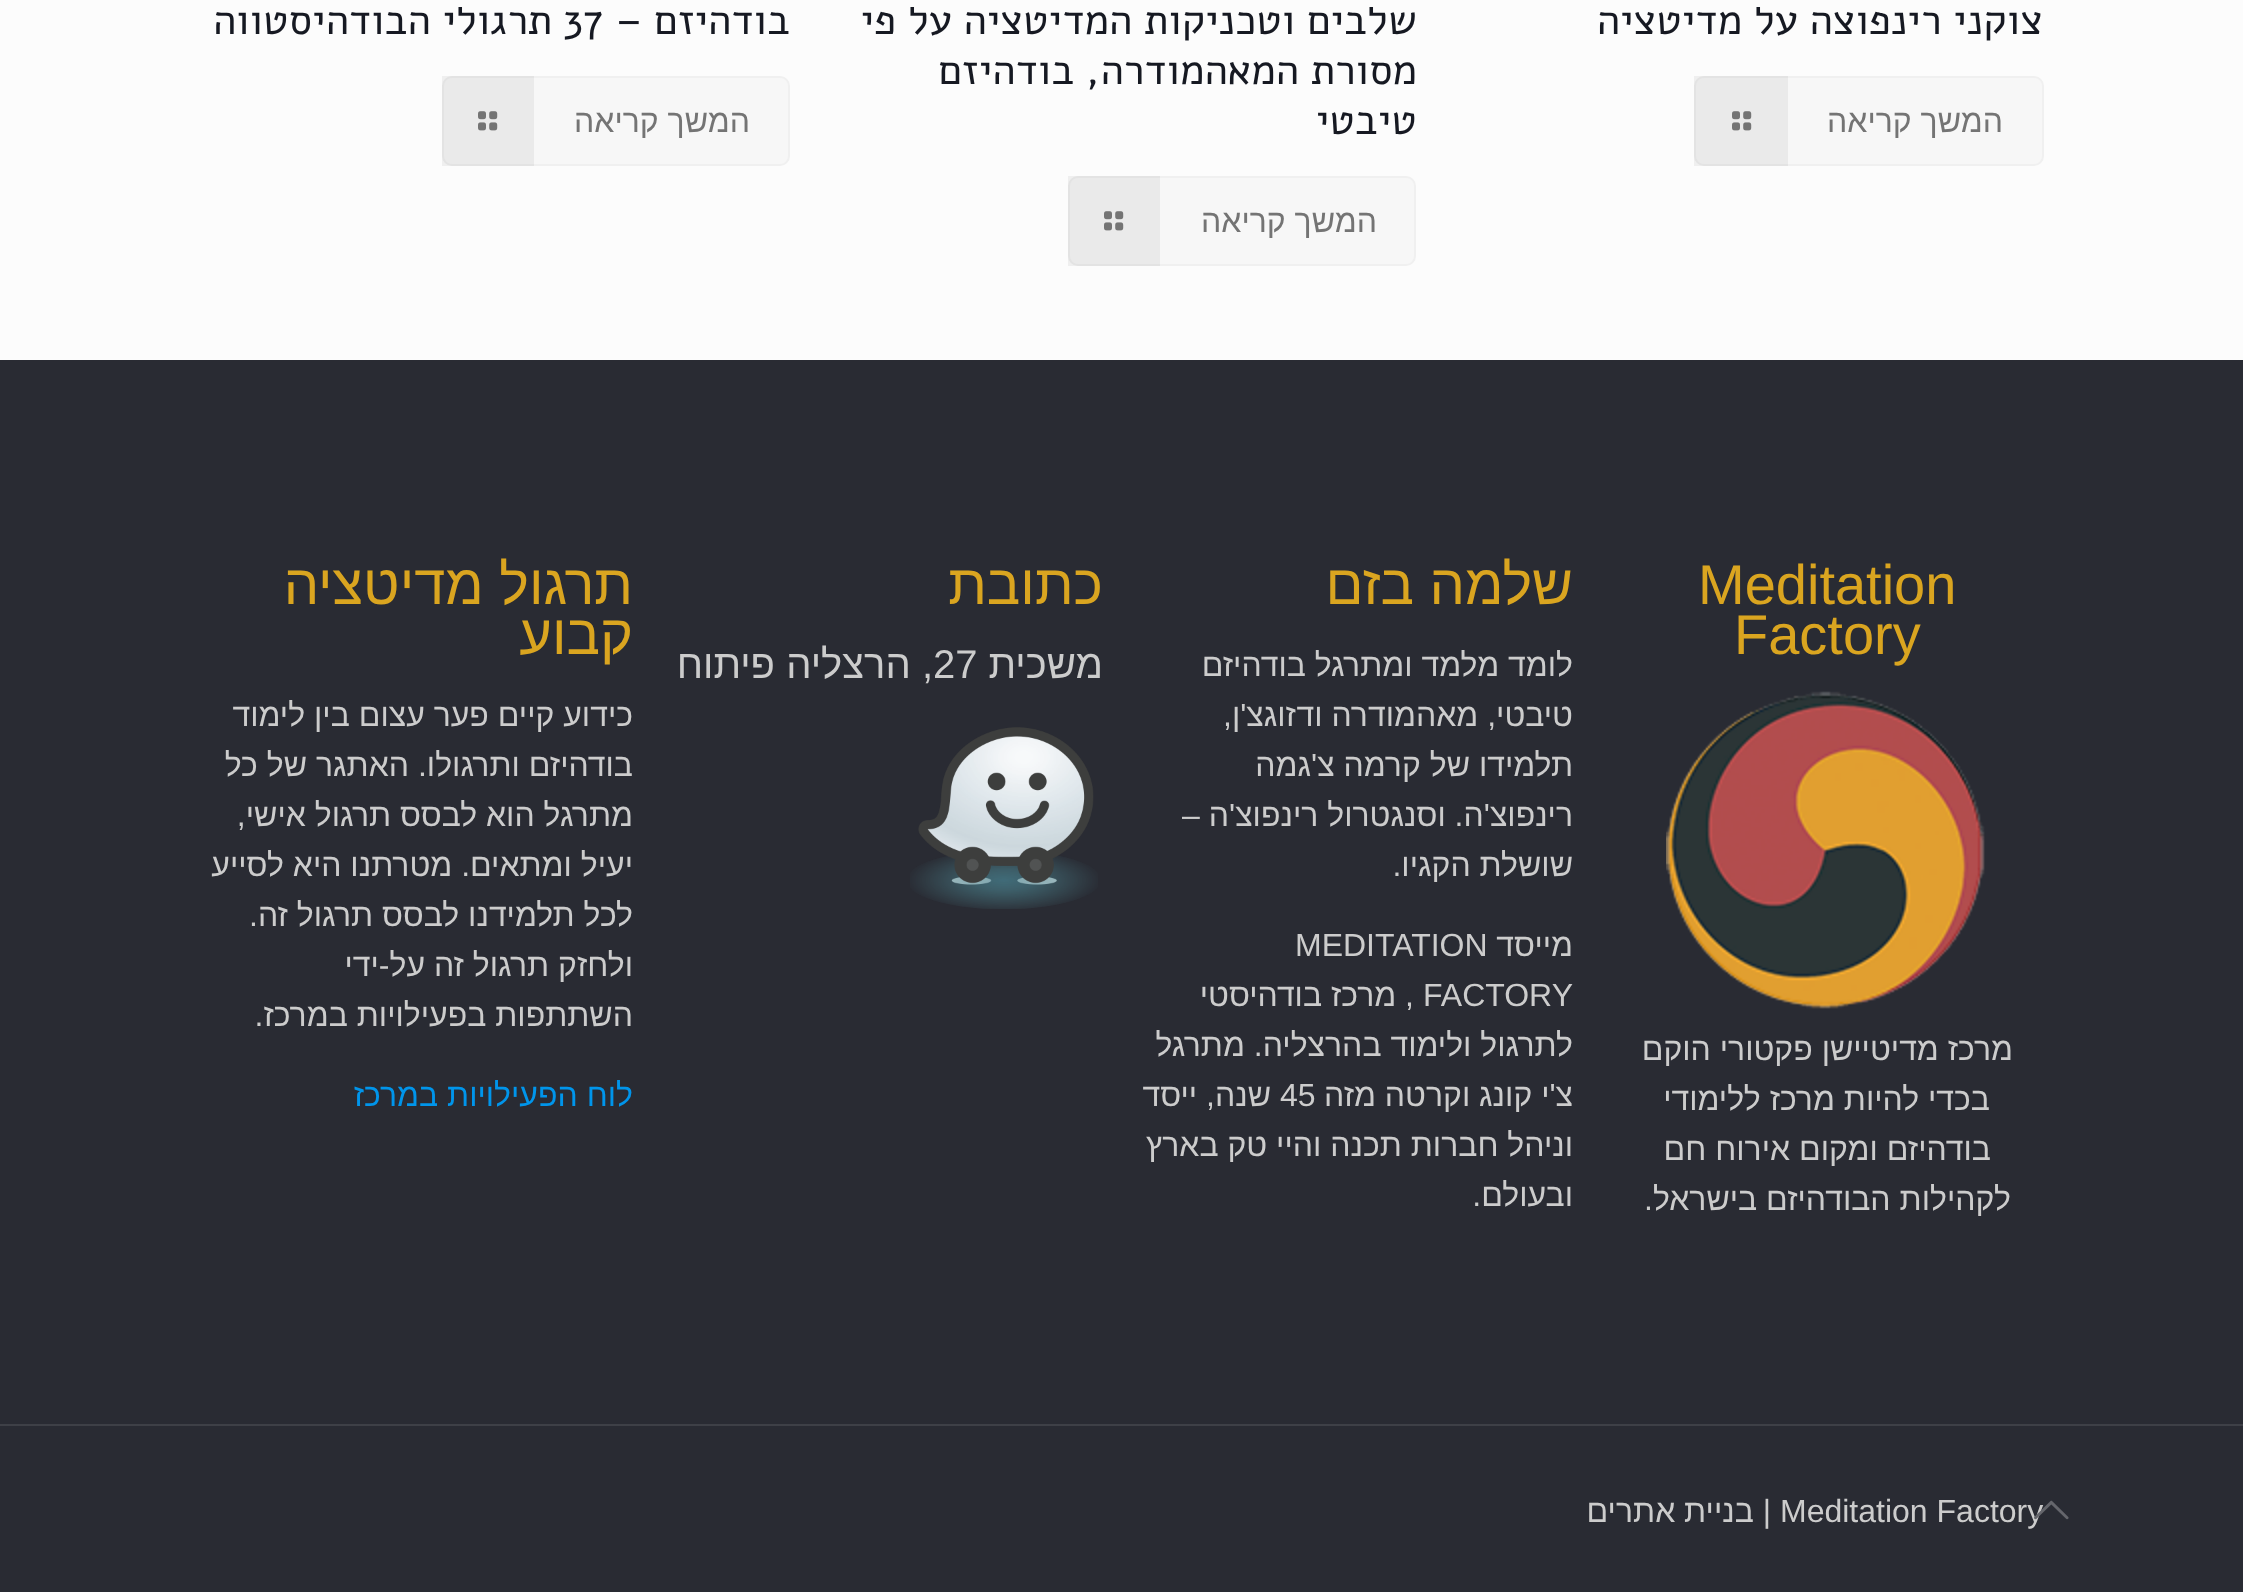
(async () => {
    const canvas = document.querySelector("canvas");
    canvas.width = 2243;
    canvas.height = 1592;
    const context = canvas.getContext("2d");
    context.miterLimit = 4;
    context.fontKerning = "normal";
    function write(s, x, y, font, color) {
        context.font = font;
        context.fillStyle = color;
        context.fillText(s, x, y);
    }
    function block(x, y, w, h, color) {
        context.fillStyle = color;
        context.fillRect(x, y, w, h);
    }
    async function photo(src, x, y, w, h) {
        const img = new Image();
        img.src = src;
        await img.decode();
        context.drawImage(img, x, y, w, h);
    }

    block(0, 0, 2243, 1592, "rgb(252, 252, 252)");
    block(0, 360, 2243, 1232, "rgb(41, 43, 51)");
    write("Meditation Factory", 1780, 1522, "32px Liberation Sans", "rgb(204, 204, 204)");
    await photo("media/1.png", 2034, 1500, 35, 20);
    context.direction = "rtl";
    write("צוקני רינפוצה על מדיטציה", 2043, 34, "42px Alef", "rgb(22, 25, 34)");
    context.fillStyle = "rgb(247, 247, 247)";
    context.beginPath();
    context.roundRect(1695, 77, 348, 88, 9);
    context.fill();
    context.strokeStyle = "rgb(240, 240, 240)";
    context.lineWidth = 2;
    context.stroke();
    write("המשך קריאה", 2003, 132, "32px Liberation Sans", "rgb(116, 116, 116)");
    await photo("media/2.png", 1732, 111, 20, 20);
    block(1694, 76, 94, 90, "rgba(0, 0, 0, 0.05)");
    write("שלבים וטכניקות המדיטציה על פי", 1417, 34, "42px Alef", "rgb(22, 25, 34)");
    write("מסורת המאהמודרה, בודהיזם", 1417, 84, "42px Alef", "rgb(22, 25, 34)");
    write("טיבטי", 1417, 134, "42px Alef", "rgb(22, 25, 34)");
    context.fillStyle = "rgb(247, 247, 247)";
    context.beginPath();
    context.roundRect(1069, 177, 346, 88, 9);
    context.fill();
    context.stroke();
    write("המשך קריאה", 1377, 232, "32px Liberation Sans", "rgb(116, 116, 116)");
    await photo("media/2.png", 1104, 211, 20, 20);
    block(1068, 176, 92, 90, "rgba(0, 0, 0, 0.05)");
    write("בודהיזם –", 790, 34, "42px Alef", "rgb(22, 25, 34)");
    context.direction = "ltr";
    write("37", 563, 34, "42px Alef", "rgb(22, 25, 34)");
    context.direction = "rtl";
    write("תרגולי הבודהיסטווה", 552, 34, "42px Alef", "rgb(22, 25, 34)");
    context.fillStyle = "rgb(247, 247, 247)";
    context.beginPath();
    context.roundRect(443, 77, 346, 88, 9);
    context.fill();
    context.stroke();
    write("המשך קריאה", 750, 132, "32px Liberation Sans", "rgb(116, 116, 116)");
    await photo("media/2.png", 478, 111, 20, 20);
    block(442, 76, 92, 90, "rgba(0, 0, 0, 0.05)");
    context.direction = "ltr";
    write("Meditation", 1698, 604, "56px Liberation Sans", "rgb(218, 165, 32)");
    write("Factory", 1734, 654, "56px Liberation Sans", "rgb(218, 165, 32)");
    await photo("media/3.png", 1666, 691, 319, 318);
    context.direction = "rtl";
    write("מרכז מדיטיישן פקטורי הוקם", 2013, 1060, "32px Liberation Sans", "rgb(204, 204, 204)");
    write("בכדי להיות מרכז ללימודי", 1990, 1110, "32px Liberation Sans", "rgb(204, 204, 204)");
    write("בודהיזם ומקום אירוח חם", 1991, 1160, "32px Liberation Sans", "rgb(204, 204, 204)");
    write("לקהילות הבודהיזם בישראל.", 2011, 1210, "32px Liberation Sans", "rgb(204, 204, 204)");
    write("שלמה בזם", 1573, 604, "56px Liberation Sans", "rgb(218, 165, 32)");
    write("לומד מלמד ומתרגל בודהיזם", 1573, 676, "32px Liberation Sans", "rgb(204, 204, 204)");
    write("טיבטי, מאהמודרה ודזוגצ'ן,", 1573, 726, "32px Liberation Sans", "rgb(204, 204, 204)");
    write("תלמידו של קרמה צ'גמה", 1573, 776, "32px Liberation Sans", "rgb(204, 204, 204)");
    write("רינפוצ'ה. וסנגטרול רינפוצ'ה –", 1573, 826, "32px Liberation Sans", "rgb(204, 204, 204)");
    write("שושלת הקגיו.", 1573, 876, "32px Liberation Sans", "rgb(204, 204, 204)");
    write("מייסד", 1573, 956, "32px Liberation Sans", "rgb(204, 204, 204)");
    context.direction = "ltr";
    write("MEDITATION", 1295, 956, "32px Liberation Sans", "rgb(204, 204, 204)");
    write("FACTORY", 1423, 1006, "32px Liberation Sans", "rgb(204, 204, 204)");
    context.direction = "rtl";
    write(", מרכז בודהיסטי", 1414, 1006, "32px Liberation Sans", "rgb(204, 204, 204)");
    write("לתרגול ולימוד בהרצליה. מתרגל", 1573, 1056, "32px Liberation Sans", "rgb(204, 204, 204)");
    write("צ'י קונג וקרטה", 1573, 1106, "32px Liberation Sans", "rgb(204, 204, 204)");
    write("מזה", 1376, 1106, "32px Liberation Sans", "rgb(204, 204, 204)");
    context.direction = "ltr";
    write("45", 1280, 1106, "32px Liberation Sans", "rgb(204, 204, 204)");
    context.direction = "rtl";
    write("שנה, ייסד", 1271, 1106, "32px Liberation Sans", "rgb(204, 204, 204)");
    write("וניהל חברות תכנה והיי טק בארץ", 1573, 1156, "32px Liberation Sans", "rgb(204, 204, 204)");
    write("ובעולם.", 1573, 1206, "32px Liberation Sans", "rgb(204, 204, 204)");
    write("כתובת", 1103, 604, "56px Liberation Sans", "rgb(218, 165, 32)");
    write("משכית", 1103, 678, "40px Liberation Sans", "rgb(204, 204, 204)");
    context.direction = "ltr";
    write("27", 933, 678, "40px Liberation Sans", "rgb(204, 204, 204)");
    context.direction = "rtl";
    write(", הרצליה פיתוח", 933, 678, "40px Liberation Sans", "rgb(204, 204, 204)");
    await photo("media/4.png", 910, 727, 188, 182);
    write("תרגול מדיטציה", 633, 604, "56px Liberation Sans", "rgb(218, 165, 32)");
    write("קבוע", 633, 654, "56px Liberation Sans", "rgb(218, 165, 32)");
    write("כידוע קיים פער עצום בין לימוד", 633, 726, "32px Liberation Sans", "rgb(204, 204, 204)");
    write("בודהיזם ותרגולו. האתגר של כל", 633, 776, "32px Liberation Sans", "rgb(204, 204, 204)");
    write("מתרגל הוא לבסס תרגול אישי,", 633, 826, "32px Liberation Sans", "rgb(204, 204, 204)");
    write("יעיל ומתאים. מטרתנו היא לסייע", 633, 876, "32px Liberation Sans", "rgb(204, 204, 204)");
    write("לכל תלמידנו לבסס תרגול זה.", 633, 926, "32px Liberation Sans", "rgb(204, 204, 204)");
    write("ולחזק תרגול זה על-ידי", 633, 976, "32px Liberation Sans", "rgb(204, 204, 204)");
    write("השתתפות בפעילויות במרכז.", 633, 1026, "32px Liberation Sans", "rgb(204, 204, 204)");
    write("לוח הפעילויות במרכז", 633, 1106, "32px Liberation Sans", "rgb(0, 149, 235)");
    block(0, 1424, 2243, 2, "rgb(62, 64, 71)");
    write("| בניית אתרים", 1771, 1522, "32px Liberation Sans", "rgb(204, 204, 204)");
})();
